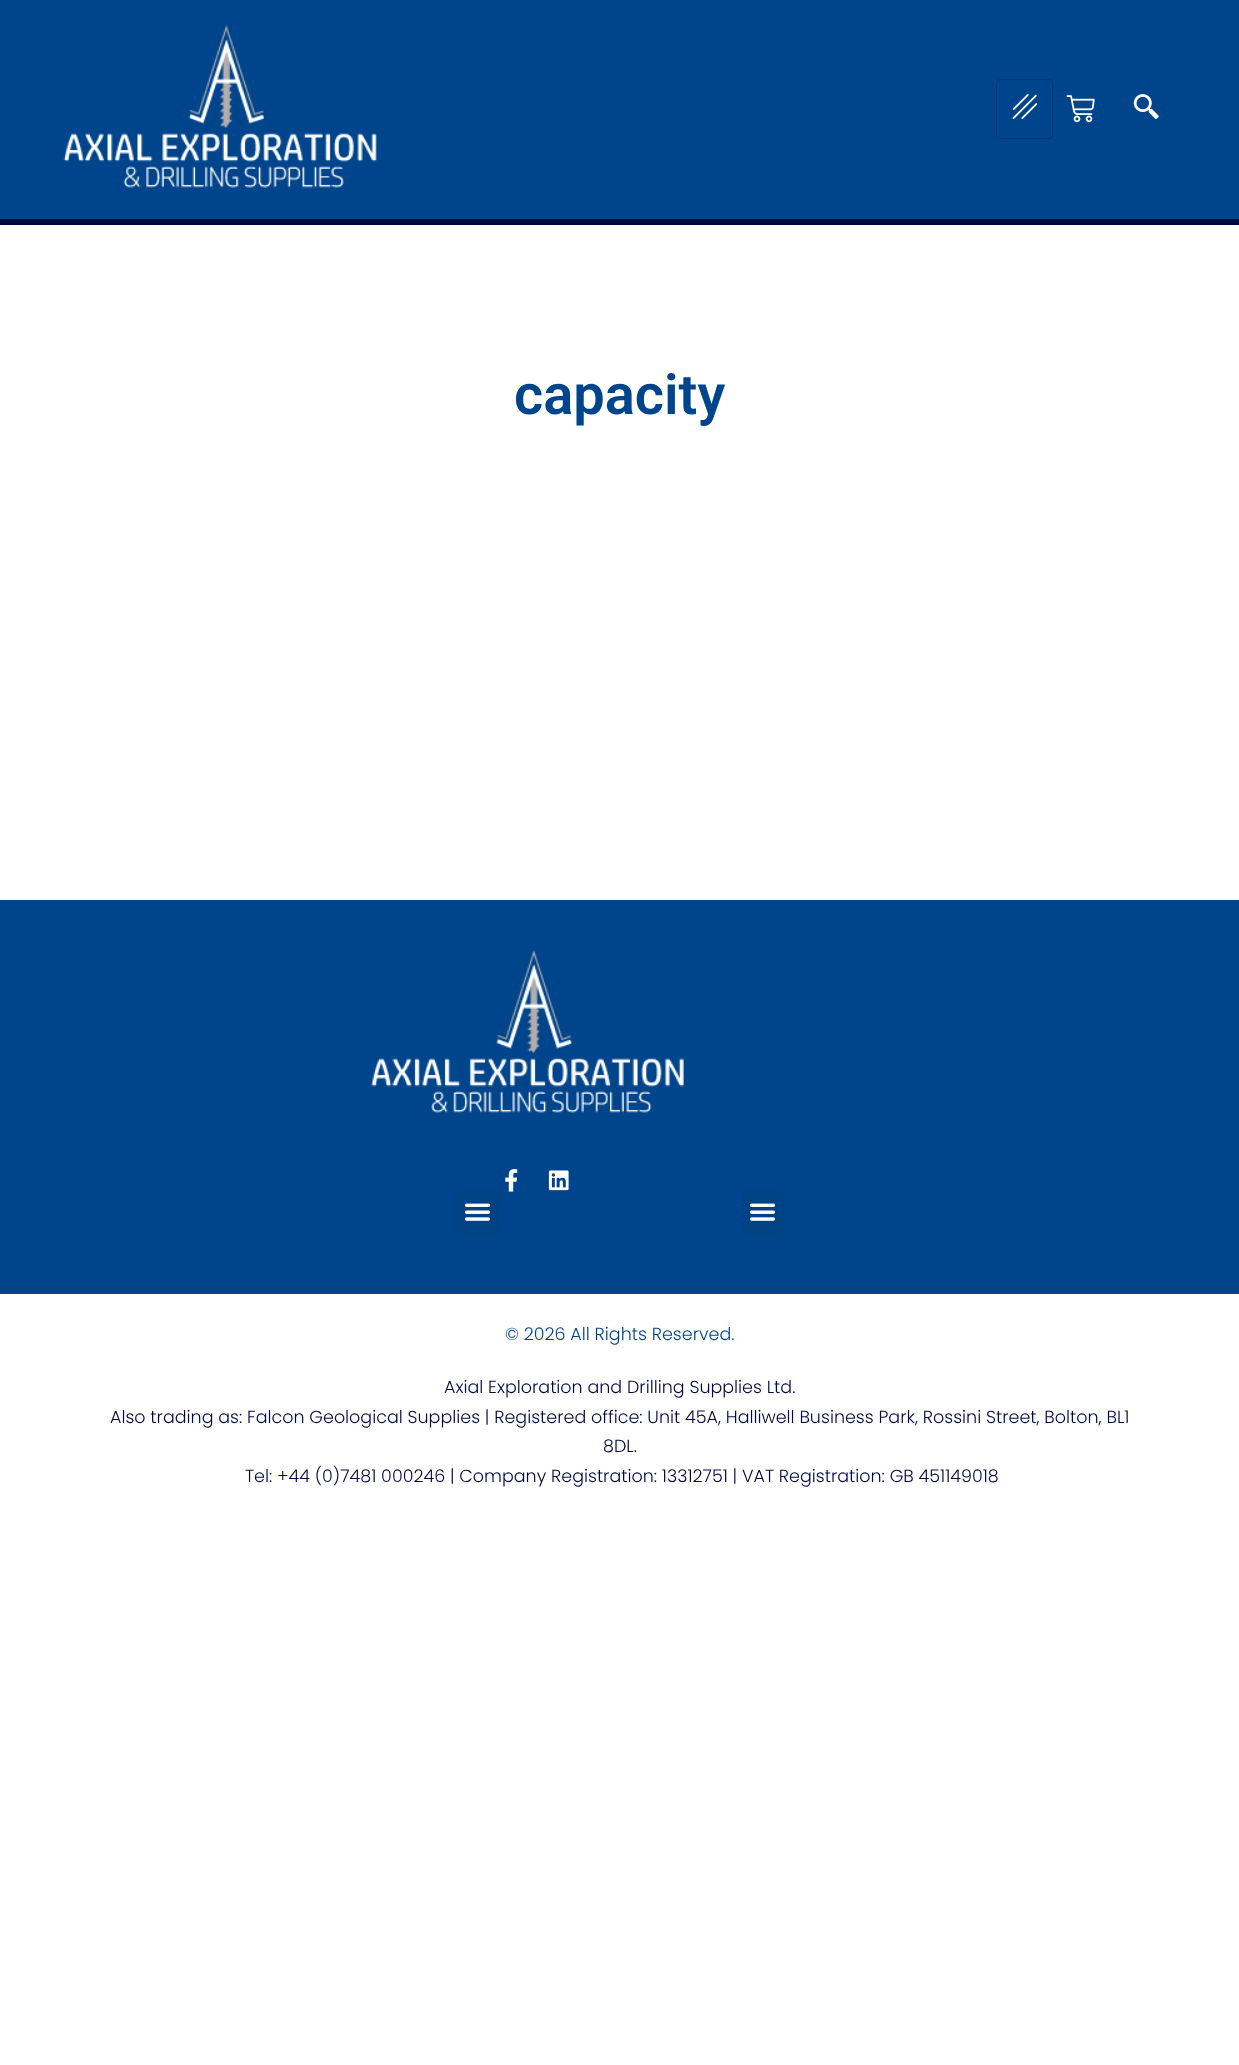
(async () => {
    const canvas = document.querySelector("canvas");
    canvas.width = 1239;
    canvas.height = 2065;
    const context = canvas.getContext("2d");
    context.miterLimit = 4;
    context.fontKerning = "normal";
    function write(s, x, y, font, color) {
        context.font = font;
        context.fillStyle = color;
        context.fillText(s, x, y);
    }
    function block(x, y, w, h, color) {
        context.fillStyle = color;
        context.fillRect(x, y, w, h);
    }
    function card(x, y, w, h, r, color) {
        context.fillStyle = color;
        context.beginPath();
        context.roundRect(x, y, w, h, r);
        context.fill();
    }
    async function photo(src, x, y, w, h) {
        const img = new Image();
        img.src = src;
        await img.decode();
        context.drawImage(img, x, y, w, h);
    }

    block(0, 0, 1239, 2065, "rgb(255, 255, 255)");
    block(0, 0, 1239, 219, "rgb(0, 69, 139)");
    block(0, 219, 1239, 6, "rgb(3, 5, 66)");
    await photo("media/1.png", 63, 25, 314, 163);
    context.beginPath();
    context.roundRect(996.5, 79.5, 56, 59, 3.5);
    context.strokeStyle = "rgb(0, 55, 111)";
    context.stroke();
    await photo("media/2.png", 1012, 94, 26, 25);
    await photo("media/3.png", 1066, 95, 29, 28);
    await photo("media/4.png", 1133, 94, 26, 25);
    write("capacity", 514, 414, "600 56px Roboto", "rgb(0, 69, 139)");
    block(0, 900, 1239, 394, "rgb(0, 69, 139)");
    await photo("media/5.png", 371, 950, 313, 163);
    await photo("media/6.png", 505, 1169, 13, 23);
    await photo("media/7.png", 548, 1170, 21, 21);
    card(456, 1191, 42, 42, 4, "rgb(0, 66, 132)");
    await photo("media/8.png", 464, 1203, 27, 18);
    card(743, 1191, 41, 42, 4, "rgb(0, 66, 132)");
    await photo("media/8.png", 749, 1203, 27, 18);
    write("© 2026 All Rights Reserved.", 505, 1340, "300 17.5px Poppins", "rgb(0, 69, 139)");
    write("Axial Exploration and Drilling Supplies Ltd.", 444, 1393, "300 17.5px Poppins", "rgb(3, 5, 66)");
    write("Also trading as: Falcon Geological Supplies | Registered office: Unit 45A, Halliwell Business Park, Rossini Street, Bolton, BL1", 110, 1423, "300 17.5px Poppins", "rgb(3, 5, 66)");
    write("8DL.", 603, 1452, "300 17.5px Poppins", "rgb(3, 5, 66)");
    write("Tel: +44 (0)7481 000246 | Company Registration: 13312751 | VAT Registration: GB 451149018", 245, 1482, "300 17.5px Poppins", "rgb(3, 5, 66)");
})();
